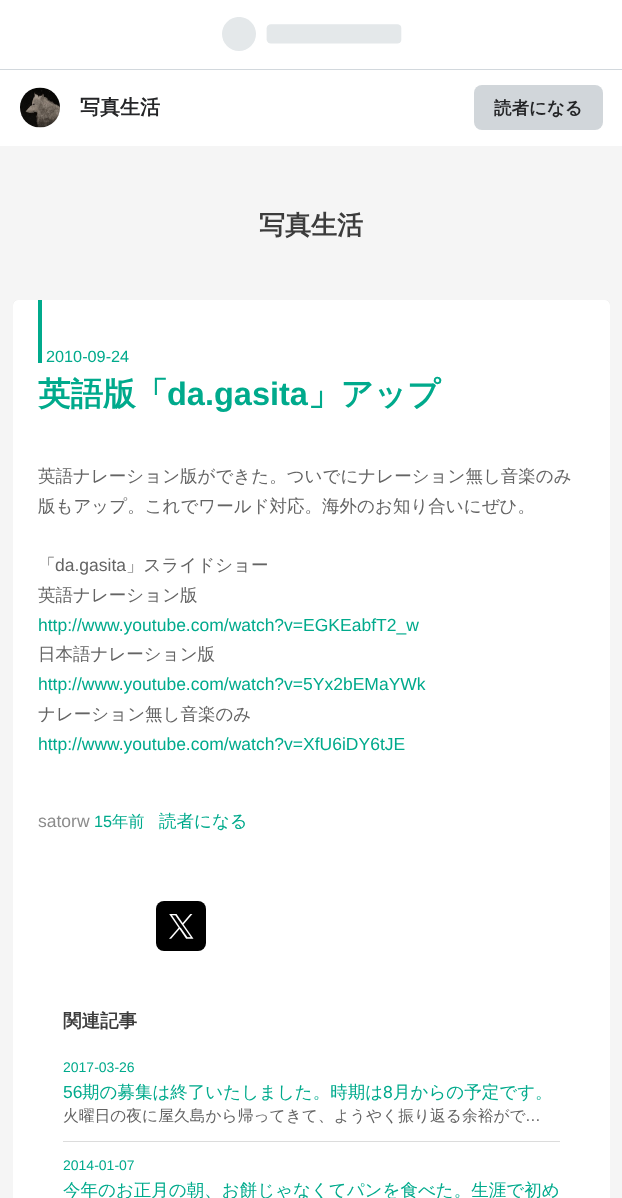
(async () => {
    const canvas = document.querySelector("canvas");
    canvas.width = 622;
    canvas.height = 1198;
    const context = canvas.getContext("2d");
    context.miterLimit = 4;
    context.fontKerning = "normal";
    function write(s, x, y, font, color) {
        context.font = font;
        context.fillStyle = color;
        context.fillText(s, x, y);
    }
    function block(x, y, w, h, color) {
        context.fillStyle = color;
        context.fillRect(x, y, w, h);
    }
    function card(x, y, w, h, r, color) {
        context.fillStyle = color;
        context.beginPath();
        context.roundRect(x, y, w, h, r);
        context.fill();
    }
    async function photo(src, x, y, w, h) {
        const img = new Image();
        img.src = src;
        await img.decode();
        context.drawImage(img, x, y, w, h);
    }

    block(0, 0, 622, 1198, "rgb(245, 245, 245)");
    block(0, 0, 622, 69, "rgb(255, 255, 255)");
    block(0, 69, 622, 1, "rgb(210, 216, 221)");
    await photo("media/1.png", 222, 17, 180, 34);
    block(0, 70, 622, 76, "rgb(255, 255, 255)");
    await photo("media/2.png", 20, 87, 40, 41);
    write("写真生活", 80, 114, "bold 20px WenQuanYi Zen Hei", "rgb(36, 37, 39)");
    card(474, 85, 129, 45, 8, "rgb(209, 214, 218)");
    write("読者になる", 494, 114, "bold 17.5px WenQuanYi Zen Hei", "rgb(36, 37, 39)");
    write("写真生活", 259, 234, "bold 26px WenQuanYi Zen Hei", "rgb(60, 60, 60)");
    context.fillStyle = "rgb(217, 217, 217)";
    context.filter = "blur(0.5px)";
    context.beginPath();
    context.roundRect(13, 300, 597, 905, 5);
    context.fill();
    context.filter = "none";
    card(13, 300, 597, 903, 5, "rgb(255, 255, 255)");
    block(38, 300, 4, 63, "rgb(0, 170, 140)");
    write("2010-09-24", 46, 362, "16.25px Liberation Sans", "rgb(0, 170, 140)");
    write("英語版「", 38, 405, "bold 32.5px WenQuanYi Zen Hei", "rgb(0, 170, 140)");
    write("da.gasita", 167, 405, "bold 32.5px Liberation Sans", "rgb(0, 170, 140)");
    write("」アップ", 308, 405, "bold 32.5px WenQuanYi Zen Hei", "rgb(0, 170, 140)");
    write("英語ナレーション版ができた。ついでにナレーション無し音楽のみ", 38, 482, "500 17.5px WenQuanYi Zen Hei", "rgb(100, 100, 100)");
    write("版もアップ。これでワールド対応。海外のお知り合いにぜひ。", 38, 512, "500 17.5px WenQuanYi Zen Hei", "rgb(100, 100, 100)");
    write("「", 38, 571, "500 17.5px WenQuanYi Zen Hei", "rgb(100, 100, 100)");
    write("da.gasita", 55, 571, "17.5px Liberation Sans", "rgb(100, 100, 100)");
    write("」スライドショー", 126, 571, "500 17.5px WenQuanYi Zen Hei", "rgb(100, 100, 100)");
    write("英語ナレーション版", 38, 601, "500 17.5px WenQuanYi Zen Hei", "rgb(100, 100, 100)");
    write("http://www.youtube.com/watch?v=EGKEabfT2_w", 38, 631, "17.5px Liberation Sans", "rgb(0, 170, 140)");
    write("日本語ナレーション版", 38, 660, "500 17.5px WenQuanYi Zen Hei", "rgb(100, 100, 100)");
    write("http://www.youtube.com/watch?v=5Yx2bEMaYWk", 38, 690, "17.5px Liberation Sans", "rgb(0, 170, 140)");
    write("ナレーション無し音楽のみ", 38, 720, "500 17.5px WenQuanYi Zen Hei", "rgb(100, 100, 100)");
    write("http://www.youtube.com/watch?v=XfU6iDY6tJE", 38, 750, "17.5px Liberation Sans", "rgb(0, 170, 140)");
    write("satorw", 38, 827, "17.5px Liberation Sans", "rgb(140, 140, 140)");
    write("15", 94, 827, "16.25px Liberation Sans", "rgb(0, 170, 140)");
    write("年前", 112, 827, "500 16.25px WenQuanYi Zen Hei", "rgb(0, 170, 140)");
    write("読者になる", 159, 827, "500 17.5px WenQuanYi Zen Hei", "rgb(0, 170, 140)");
    card(156, 901, 50, 50, 8, "rgb(0, 0, 0)");
    await photo("media/3.png", 169, 914, 25, 25);
    write("関連記事", 63, 1027, "bold 18.5px WenQuanYi Zen Hei", "rgb(60, 60, 60)");
    block(63, 1141, 497, 1, "rgb(220, 220, 220)");
    write("2017-03-26", 63, 1072, "14px Liberation Sans", "rgb(0, 170, 140)");
    write("56", 63, 1098, "17.5px Liberation Sans", "rgb(0, 170, 140)");
    write("期の募集は終了いたしました。時期は", 82, 1098, "500 17.5px WenQuanYi Zen Hei", "rgb(0, 170, 140)");
    write("8", 383, 1098, "17.5px Liberation Sans", "rgb(0, 170, 140)");
    write("月からの予定です。", 393, 1098, "500 17.5px WenQuanYi Zen Hei", "rgb(0, 170, 140)");
    write("火曜日の夜に屋久島から帰ってきて、ようやく振り返る余裕がで", 63, 1121, "500 15.75px WenQuanYi Zen Hei", "rgb(100, 100, 100)");
    write("…", 525, 1121, "15.75px Liberation Sans", "rgb(100, 100, 100)");
    write("2014-01-07", 63, 1170, "14px Liberation Sans", "rgb(0, 170, 140)");
    write("今年のお正月の朝、お餅じゃなくてパンを食べた。生涯で初め", 63, 1196, "500 17.5px WenQuanYi Zen Hei", "rgb(0, 170, 140)");
})();
